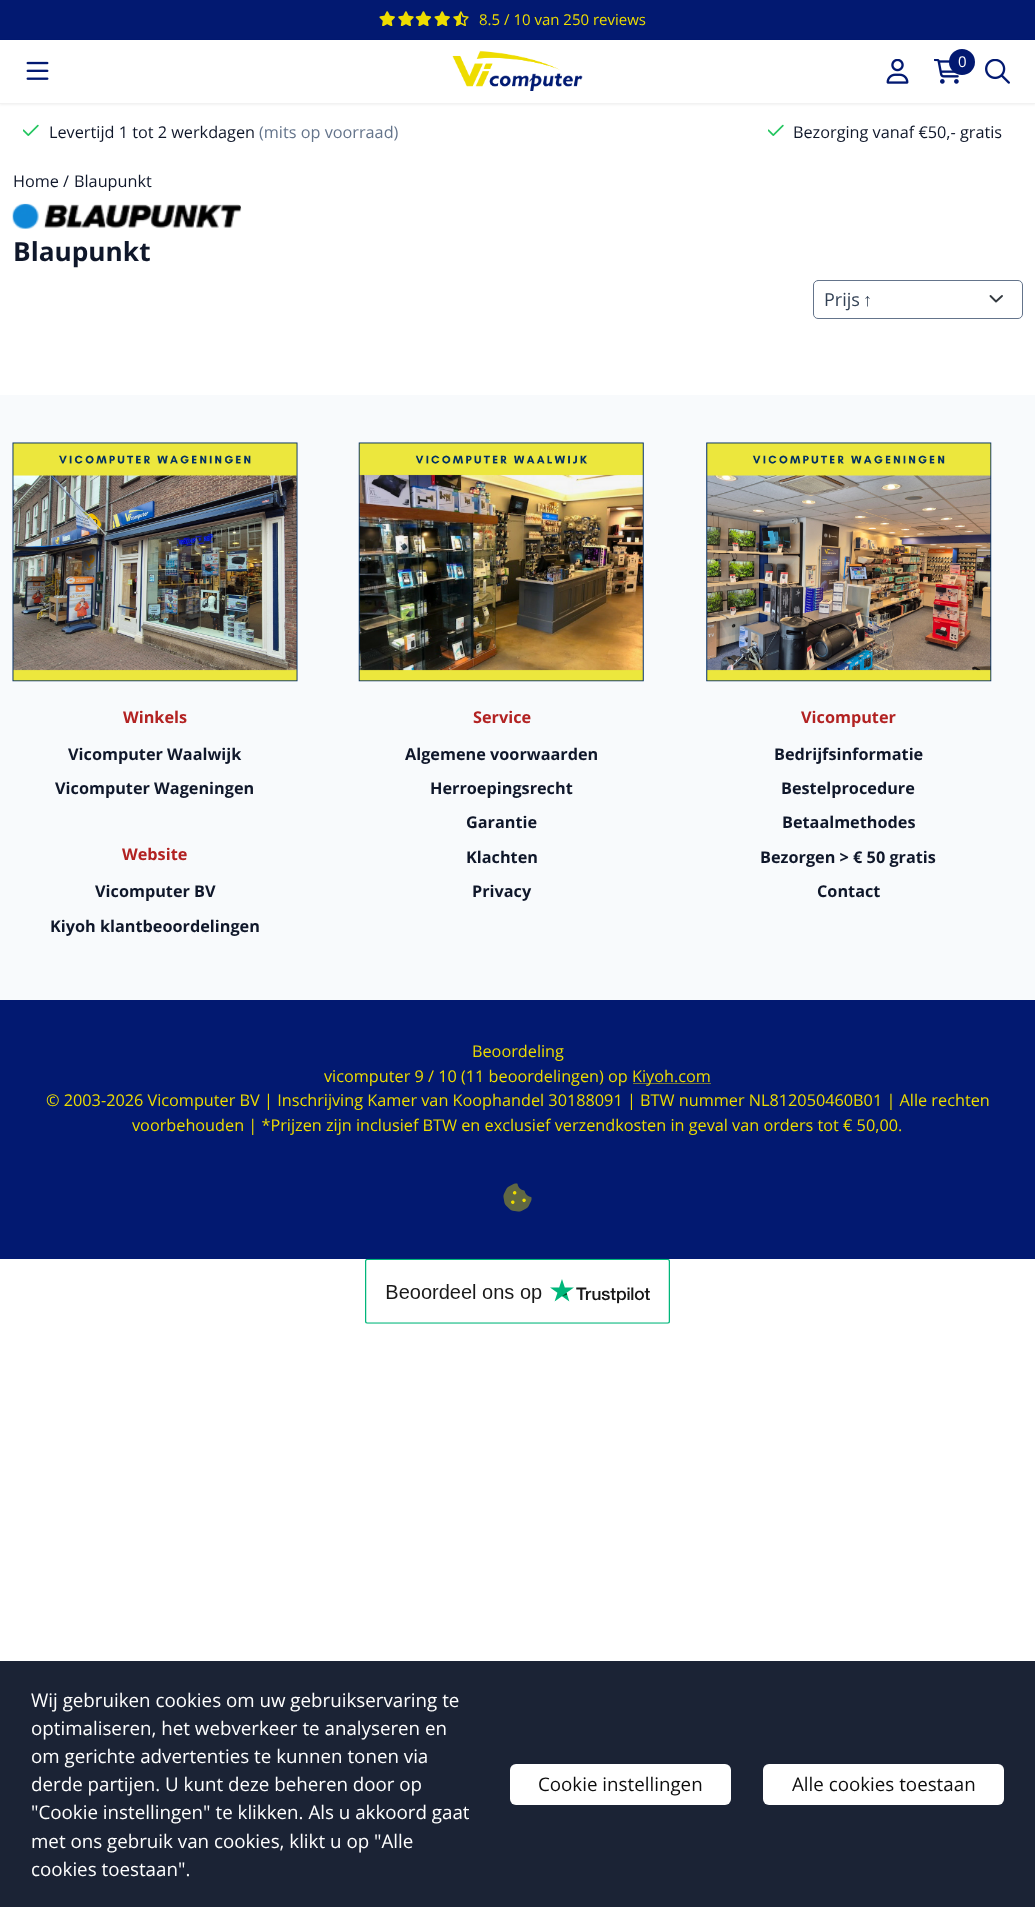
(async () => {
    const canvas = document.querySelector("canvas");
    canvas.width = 1035;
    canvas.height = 1907;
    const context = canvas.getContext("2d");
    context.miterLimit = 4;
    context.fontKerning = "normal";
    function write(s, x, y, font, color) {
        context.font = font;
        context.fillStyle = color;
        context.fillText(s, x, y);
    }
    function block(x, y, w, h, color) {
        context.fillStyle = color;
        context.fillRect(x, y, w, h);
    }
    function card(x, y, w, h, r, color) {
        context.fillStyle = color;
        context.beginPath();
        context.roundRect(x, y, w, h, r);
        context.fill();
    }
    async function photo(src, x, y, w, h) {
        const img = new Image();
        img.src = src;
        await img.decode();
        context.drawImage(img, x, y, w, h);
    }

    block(0, 0, 1035, 1907, "rgb(255, 255, 255)");
    block(0, 0, 1035, 40, "rgb(2, 25, 113)");
    await photo("media/1.png", 379, 11, 16, 15);
    await photo("media/2.png", 398, 11, 16, 15);
    await photo("media/3.png", 415, 11, 17, 15);
    await photo("media/1.png", 434, 11, 16, 15);
    await photo("media/4.png", 453, 11, 16, 15);
    write("8.5 / 10 van 250 reviews", 479, 25, "15px Open Sans", "rgb(237, 220, 0)");
    context.fillStyle = "rgba(0, 0, 0, 0.05)";
    context.filter = "blur(1px)";
    context.beginPath();
    context.rect(0, 41, 1035, 64);
    context.fill();
    context.filter = "none";
    block(0, 40, 1035, 63, "rgb(255, 255, 255)");
    block(0, 103, 1035, 1, "rgb(242, 242, 242)");
    await photo("media/5.png", 26, 61, 23, 19);
    await photo("media/6.png", 452, 50, 131, 41);
    await photo("media/7.png", 886, 59, 23, 25);
    await photo("media/8.png", 934, 59, 25, 25);
    context.fillStyle = "rgb(2, 25, 113)";
    context.beginPath();
    context.arc(962, 62, 13, 0, Math.PI * 2);
    context.fill();
    write("0", 958, 67, "15px Open Sans", "rgb(255, 255, 255)");
    await photo("media/9.png", 985, 59, 25, 25);
    await photo("media/10.png", 23, 124, 16, 12);
    write("Levertijd 1 tot 2 werkdagen", 49, 138, "16.25px Open Sans", "rgb(15, 23, 42)");
    write("(mits op voorraad)", 259, 138, "16.25px Open Sans", "rgb(100, 116, 139)");
    await photo("media/10.png", 768, 124, 16, 12);
    write("Bezorging vanaf €50,- gratis", 793, 138, "16.25px Open Sans", "rgb(15, 23, 42)");
    write("Home", 13, 187, "16.25px Open Sans", "rgb(15, 23, 42)");
    write("/", 63, 187, "16.25px Open Sans", "rgb(15, 23, 42)");
    write("Blaupunkt", 74, 187, "16.25px Open Sans", "rgb(15, 23, 42)");
    await photo("media/11.png", 12, 203, 230, 26);
    write("Blaupunkt", 13, 261, "bold 26.25px Open Sans", "rgb(15, 23, 42)");
    context.beginPath();
    context.moveTo(990.5, 296);
    context.lineTo(996, 301.5);
    context.lineTo(1002, 296);
    context.strokeStyle = "rgb(52, 58, 64)";
    context.lineWidth = 1.9;
    context.lineCap = "round";
    context.lineJoin = "round";
    context.stroke();
    context.beginPath();
    context.roundRect(813.5, 280.5, 209, 38, 4.5);
    context.strokeStyle = "rgb(100, 116, 139)";
    context.lineWidth = 1;
    context.lineJoin = "miter";
    context.stroke();
    write("Prijs", 824, 306, "18px Open Sans", "rgb(51, 65, 85)");
    write("↑", 863, 306, "18px Liberation Sans", "rgb(51, 65, 85)");
    block(0, 395, 1035, 605, "rgb(248, 250, 252)");
    await photo("media/12.png", 12, 442, 286, 240);
    write("Winkels", 123, 723, "bold 16.25px Open Sans", "rgb(178, 34, 34)");
    write("Vicomputer Waalwijk", 68, 760, "bold 16.25px Open Sans", "rgb(15, 23, 42)");
    write("Vicomputer Wageningen", 55, 794, "bold 16.25px Open Sans", "rgb(15, 23, 42)");
    write("Website", 122, 860, "bold 16.25px Open Sans", "rgb(178, 34, 34)");
    write("Vicomputer BV", 95, 897, "bold 16.25px Open Sans", "rgb(15, 23, 42)");
    write("Kiyoh klantbeoordelingen", 50, 932, "bold 16.25px Open Sans", "rgb(15, 23, 42)");
    await photo("media/13.png", 358, 442, 286, 240);
    write("Service", 473, 723, "bold 16.25px Open Sans", "rgb(178, 34, 34)");
    write("Algemene voorwaarden", 405, 760, "bold 16.25px Open Sans", "rgb(15, 23, 42)");
    write("Herroepingsrecht", 430, 794, "bold 16.25px Open Sans", "rgb(15, 23, 42)");
    write("Garantie", 466, 828, "bold 16.25px Open Sans", "rgb(15, 23, 42)");
    write("Klachten", 466, 863, "bold 16.25px Open Sans", "rgb(15, 23, 42)");
    write("Privacy", 472, 897, "bold 16.25px Open Sans", "rgb(15, 23, 42)");
    await photo("media/14.png", 706, 442, 286, 240);
    write("Vicomputer", 801, 723, "bold 16.25px Open Sans", "rgb(178, 34, 34)");
    write("Bedrijfsinformatie", 774, 760, "bold 16.25px Open Sans", "rgb(15, 23, 42)");
    write("Bestelprocedure", 781, 794, "bold 16.25px Open Sans", "rgb(15, 23, 42)");
    write("Betaalmethodes", 782, 828, "bold 16.25px Open Sans", "rgb(15, 23, 42)");
    write("Bezorgen > € 50 gratis", 760, 863, "bold 16.25px Open Sans", "rgb(15, 23, 42)");
    write("Contact", 817, 897, "bold 16.25px Open Sans", "rgb(15, 23, 42)");
    block(0, 1000, 1035, 259, "rgb(2, 25, 113)");
    write("Beoordeling", 472, 1057, "16.25px Open Sans", "rgb(237, 220, 0)");
    write("vicomputer 9 / 10 (11 beoordelingen) op", 324, 1082, "16.25px Open Sans", "rgb(237, 220, 0)");
    block(633, 1083, 78, 1, "rgb(120, 123, 57)");
    write("Kiyoh.com", 632, 1082, "16.25px Open Sans", "rgb(237, 220, 0)");
    write("© 2003-2026 Vicomputer BV | Inschrijving Kamer van Koophandel 30188091 | BTW nummer NL812050460B01 | Alle rechten", 46, 1106, "16.25px Open Sans", "rgb(237, 220, 0)");
    write("voorbehouden | *Prijzen zijn inclusief BTW en exclusief verzendkosten in geval van orders tot € 50,00.", 132, 1131, "16.25px Open Sans", "rgb(237, 220, 0)");
    await photo("media/15.png", 503, 1183, 29, 29);
    await photo("media/16.png", 365, 1258, 305, 66);
    block(0, 1661, 1035, 246, "rgb(27, 35, 53)");
    write("Wij gebruiken cookies om uw gebruikservaring te", 31, 1707, "18.75px Open Sans", "rgb(255, 255, 255)");
    write("optimaliseren, het webverkeer te analyseren en", 31, 1735, "18.75px Open Sans", "rgb(255, 255, 255)");
    write("om gerichte advertenties te kunnen tonen via", 31, 1763, "18.75px Open Sans", "rgb(255, 255, 255)");
    write("derde partijen. U kunt deze beheren door op", 31, 1791, "18.75px Open Sans", "rgb(255, 255, 255)");
    write("\"Cookie instellingen\" te klikken. Als u akkoord gaat", 31, 1819, "18.75px Open Sans", "rgb(255, 255, 255)");
    write("met ons gebruik van cookies, klikt u op \"Alle", 31, 1848, "18.75px Open Sans", "rgb(255, 255, 255)");
    write("cookies toestaan\".", 31, 1876, "18.75px Open Sans", "rgb(255, 255, 255)");
    card(510, 1764, 221, 41, 6, "rgb(255, 255, 255)");
    write("Cookie instellingen", 538, 1791, "18.75px Open Sans", "rgb(13, 13, 13)");
    card(763, 1764, 241, 41, 6, "rgb(255, 255, 255)");
    write("Alle cookies toestaan", 792, 1791, "18.75px Open Sans", "rgb(13, 13, 13)");
})();
